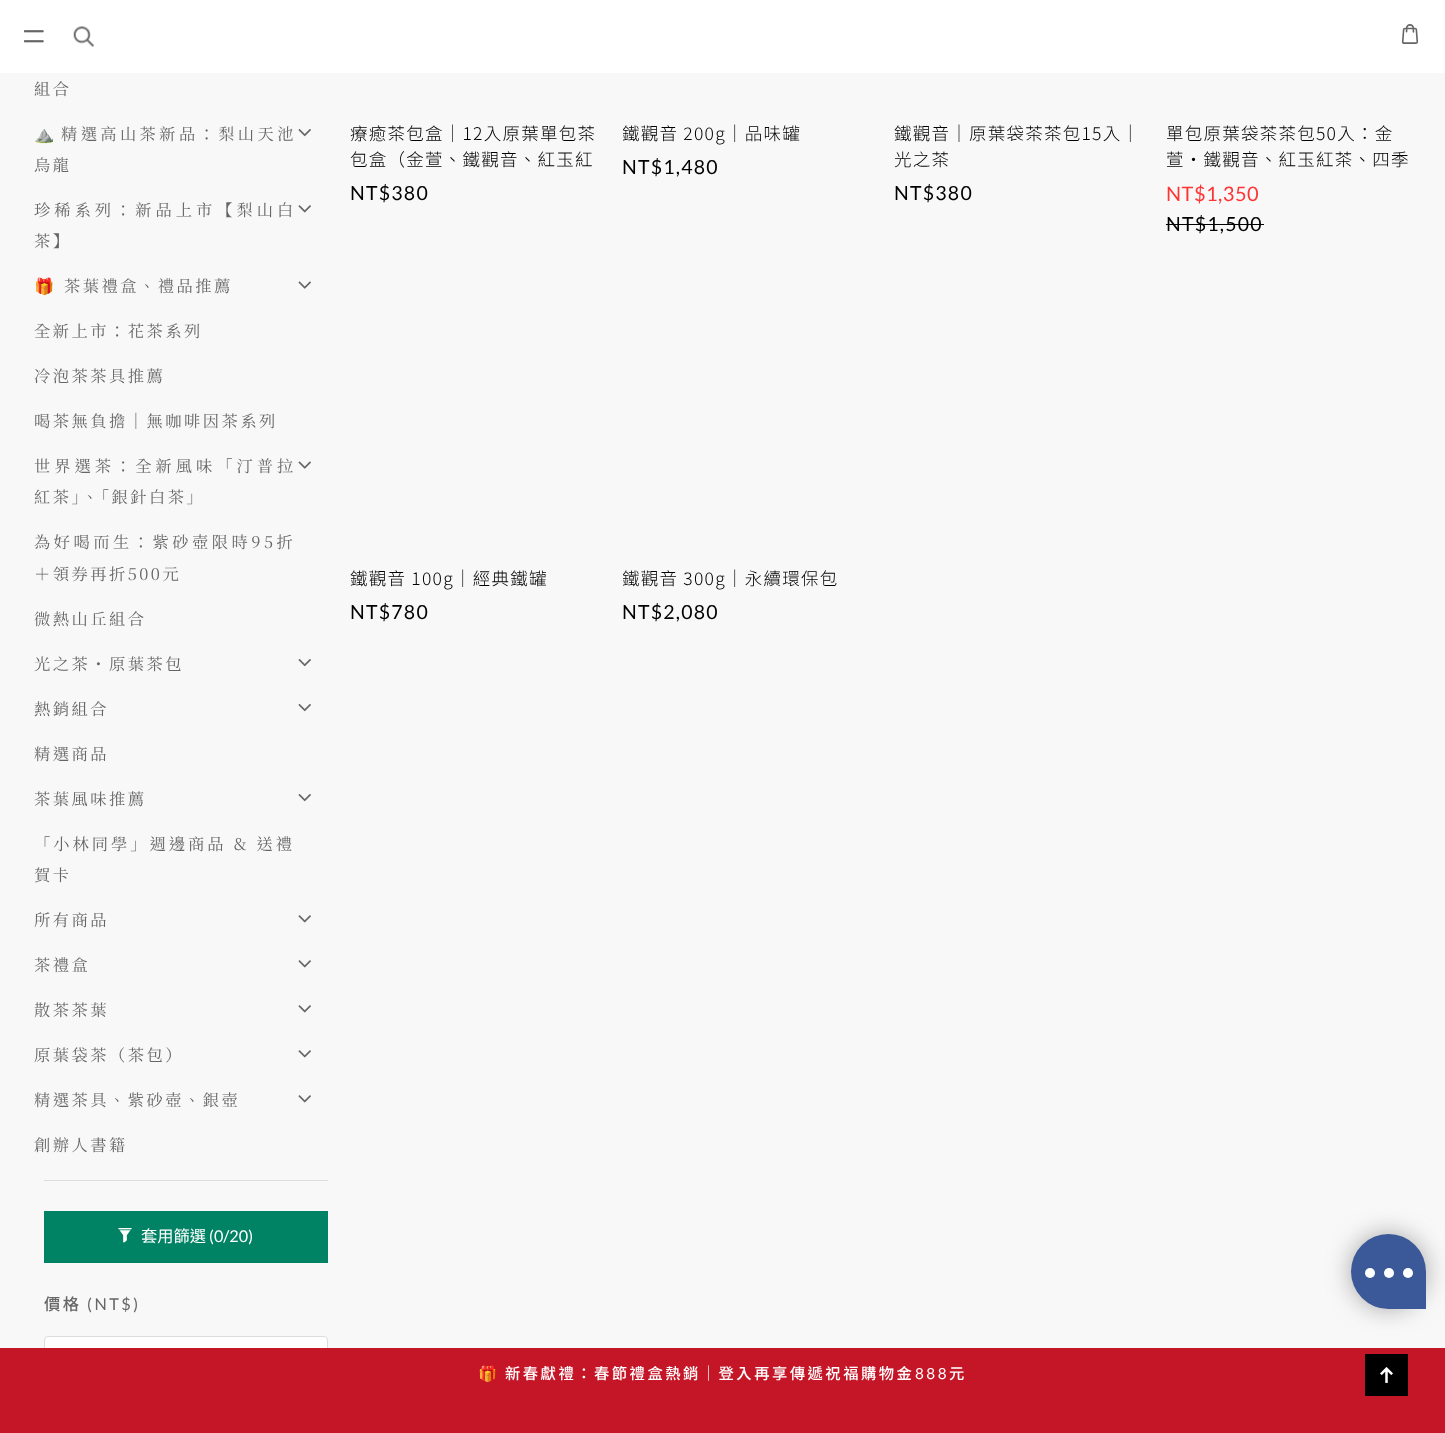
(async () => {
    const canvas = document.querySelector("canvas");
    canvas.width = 1445;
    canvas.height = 1433;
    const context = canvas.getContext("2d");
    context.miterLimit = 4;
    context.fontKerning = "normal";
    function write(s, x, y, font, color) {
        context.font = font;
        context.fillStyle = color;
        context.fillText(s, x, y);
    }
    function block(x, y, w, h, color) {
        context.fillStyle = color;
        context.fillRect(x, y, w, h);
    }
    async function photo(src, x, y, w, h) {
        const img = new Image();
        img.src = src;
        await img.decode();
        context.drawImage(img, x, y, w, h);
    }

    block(0, 0, 1445, 1433, "rgb(248, 248, 248)");
    block(0, 0, 1445, 73, "rgb(255, 255, 255)");
    await photo("media/1.png", 24, 30, 20, 13);
    await photo("media/2.png", 73, 26, 21, 21);
    await photo("media/3.png", 1401, 24, 18, 20);
    context.letterSpacing = "2.5px";
    write("組合", 34, 95, "16.25px Noto Serif TC", "rgb(102, 102, 102)");
    context.letterSpacing = "3.4px";
    write("⛰️", 34, 140, "16.25px Noto Color Emoji", "rgb(102, 102, 102)");
    write("精選高山茶新品：梨山天池", 61, 140, "16.25px Noto Serif TC", "rgb(102, 102, 102)");
    context.letterSpacing = "2.5px";
    write("烏龍", 34, 171, "16.25px Noto Serif TC", "rgb(102, 102, 102)");
    await photo("media/4.png", 298, 129, 13, 8);
    context.letterSpacing = "4px";
    write("珍稀系列：新品上市【梨山白", 34, 216, "16.25px Noto Serif TC", "rgb(102, 102, 102)");
    context.letterSpacing = "2.5px";
    write("茶】", 34, 247, "16.25px Noto Serif TC", "rgb(102, 102, 102)");
    await photo("media/5.png", 298, 205, 13, 8);
    write("🎁", 34, 292, "16.25px Noto Color Emoji", "rgb(102, 102, 102)");
    write("茶葉禮盒、禮品推薦", 64, 292, "16.25px Noto Serif TC", "rgb(102, 102, 102)");
    await photo("media/6.png", 298, 281, 13, 8);
    write("全新上市：花茶系列", 34, 337, "16.25px Noto Serif TC", "rgb(102, 102, 102)");
    write("冷泡茶茶具推薦", 34, 382, "16.25px Noto Serif TC", "rgb(102, 102, 102)");
    write("喝茶無負擔｜無咖啡因茶系列", 34, 427, "16.25px Noto Serif TC", "rgb(102, 102, 102)");
    context.letterSpacing = "4px";
    write("世界選茶：全新風味「汀普拉", 34, 472, "16.25px Noto Serif TC", "rgb(102, 102, 102)");
    context.letterSpacing = "2.5px";
    write("紅茶」、「銀針白茶」", 34, 503, "16.25px Noto Serif TC", "rgb(102, 102, 102)");
    await photo("media/6.png", 298, 461, 13, 8);
    context.letterSpacing = "3.5px";
    write("為好喝而生：紫砂壺限時95折", 34, 548, "16.25px Noto Serif TC", "rgb(102, 102, 102)");
    context.letterSpacing = "2.5px";
    write("＋領券再折500元", 34, 580, "16.25px Noto Serif TC", "rgb(102, 102, 102)");
    write("微熱山丘組合", 34, 625, "16.25px Noto Serif TC", "rgb(102, 102, 102)");
    write("光之茶・原葉茶包", 34, 670, "16.25px Noto Serif TC", "rgb(102, 102, 102)");
    await photo("media/4.png", 298, 659, 13, 8);
    write("熱銷組合", 34, 715, "16.25px Noto Serif TC", "rgb(102, 102, 102)");
    await photo("media/4.png", 298, 704, 13, 8);
    write("精選商品", 34, 760, "16.25px Noto Serif TC", "rgb(102, 102, 102)");
    write("茶葉風味推薦", 34, 805, "16.25px Noto Serif TC", "rgb(102, 102, 102)");
    await photo("media/4.png", 298, 794, 13, 8);
    context.letterSpacing = "3px";
    write("「小林同學」週邊商品 & 送禮", 34, 850, "16.25px Noto Serif TC", "rgb(102, 102, 102)");
    context.letterSpacing = "2.5px";
    write("賀卡", 34, 881, "16.25px Noto Serif TC", "rgb(102, 102, 102)");
    write("所有商品", 34, 926, "16.25px Noto Serif TC", "rgb(102, 102, 102)");
    await photo("media/5.png", 298, 915, 13, 8);
    write("茶禮盒", 34, 971, "16.25px Noto Serif TC", "rgb(102, 102, 102)");
    await photo("media/5.png", 298, 960, 13, 8);
    write("散茶茶葉", 34, 1016, "16.25px Noto Serif TC", "rgb(102, 102, 102)");
    await photo("media/5.png", 298, 1005, 13, 8);
    write("原葉袋茶（茶包）", 34, 1061, "16.25px Noto Serif TC", "rgb(102, 102, 102)");
    await photo("media/5.png", 298, 1050, 13, 8);
    write("精選茶具、紫砂壺、銀壺", 34, 1106, "16.25px Noto Serif TC", "rgb(102, 102, 102)");
    await photo("media/5.png", 298, 1095, 13, 8);
    write("創辦人書籍", 34, 1151, "16.25px Noto Serif TC", "rgb(102, 102, 102)");
    block(44, 1180, 284, 1, "rgb(221, 221, 221)");
    block(44, 1211, 284, 52, "rgb(0, 130, 100)");
    await photo("media/7.png", 118, 1228, 14, 15);
    context.letterSpacing = "0px";
    write("套用篩選", 141, 1242, "16.25px Noto Sans TC", "rgb(255, 255, 255)");
    write("(0/20)", 209, 1242, "16.25px Lato", "rgb(255, 255, 255)");
    context.letterSpacing = "2.5px";
    write("價格", 44, 1310, "500 16.25px Noto Sans TC", "rgb(102, 102, 102)");
    write("(NT$)", 87, 1310, "16.25px Lato", "rgb(102, 102, 102)");
    context.fillStyle = "rgb(255, 255, 255)";
    context.beginPath();
    context.roundRect(44.5, 1336.5, 283, 44, 3.5);
    context.fill();
    context.strokeStyle = "rgb(221, 221, 221)";
    context.stroke();
    context.letterSpacing = "1.25px";
    write("療癒茶包盒｜12入原葉單包茶", 350, 140, "300 17.5px Noto Sans TC", "rgb(0, 0, 0)");
    write("包盒（金萱、鐵觀音、紅玉紅", 350, 166, "300 17.5px Noto Sans TC", "rgb(0, 0, 0)");
    write("NT$380", 350, 200, "19.5px Lato", "rgb(0, 0, 0)");
    context.save();
    context.beginPath();
    context.rect(623, 120, 258, 26);
    context.clip();
    write("鐵觀音 200g｜品味罐", 622, 140, "300 17.5px Noto Sans TC", "rgb(0, 0, 0)");
    context.restore();
    write("NT$1,480", 622, 174, "19.5px Lato", "rgb(0, 0, 0)");
    write("鐵觀音｜原葉袋茶茶包15入｜", 894, 140, "300 17.5px Noto Sans TC", "rgb(0, 0, 0)");
    write("光之茶", 894, 166, "300 17.5px Noto Sans TC", "rgb(0, 0, 0)");
    write("NT$380", 894, 200, "19.5px Lato", "rgb(0, 0, 0)");
    write("單包原葉袋茶茶包50入：金", 1166, 140, "300 17.5px Noto Sans TC", "rgb(0, 0, 0)");
    write("萱・鐵觀音、紅玉紅茶、四季", 1166, 166, "300 17.5px Noto Sans TC", "rgb(0, 0, 0)");
    context.letterSpacing = "0.5px";
    write("NT$1,350", 1166, 201, "20px Lato", "rgb(255, 52, 52)");
    context.letterSpacing = "1.25px";
    write("NT$1,500", 1166, 231, "19.5px Lato", "rgb(0, 0, 0)");
    block(1166, 224, 98, 1, "rgb(0, 0, 0)");
    write("鐵觀音 100g｜經典鐵罐", 350, 585, "300 17.5px Noto Sans TC", "rgb(0, 0, 0)");
    write("NT$780", 350, 619, "19.5px Lato", "rgb(0, 0, 0)");
    context.save();
    context.beginPath();
    context.rect(623, 565, 258, 26);
    context.clip();
    write("鐵觀音 300g｜永續環保包", 622, 585, "300 17.5px Noto Sans TC", "rgb(0, 0, 0)");
    context.restore();
    write("NT$2,080", 622, 619, "19.5px Lato", "rgb(0, 0, 0)");
    context.fillStyle = "rgba(119, 119, 119, 0.64)";
    context.filter = "blur(12.5px)";
    context.beginPath();
    context.roundRect(1351, 1234, 75, 75, 37.5);
    context.fill();
    context.filter = "none";
    context.fillStyle = "rgb(59, 89, 152)";
    context.beginPath();
    context.roundRect(1351, 1234, 75, 75, [37.5, 37.5, 0, 37.5]);
    context.fill();
    context.fillStyle = "rgb(255, 255, 255)";
    context.beginPath();
    context.arc(1370, 1273, 5, 0, Math.PI * 2);
    context.fill();
    context.beginPath();
    context.arc(1389, 1273, 5, 0, Math.PI * 2);
    context.fill();
    context.beginPath();
    context.arc(1408, 1273, 5, 0, Math.PI * 2);
    context.fill();
    block(0, 1348, 1445, 85, "rgb(197, 22, 39)");
    context.letterSpacing = "2.5px";
    write("🎁", 478, 1379, "15.3px Noto Color Emoji", "rgb(255, 255, 255)");
    write("新春獻禮：春節禮盒熱銷｜登入再享傳遞祝福購物金", 505, 1379, "500 15.3px Noto Sans TC", "rgb(255, 255, 255)");
    write("888", 915, 1379, "15.3px Lato", "rgb(255, 255, 255)");
    write("元", 949, 1379, "500 15.3px Noto Sans TC", "rgb(255, 255, 255)");
    block(1365, 1354, 43, 42, "rgb(0, 0, 0)");
    await photo("media/8.png", 1380, 1367, 13, 16);
})();
